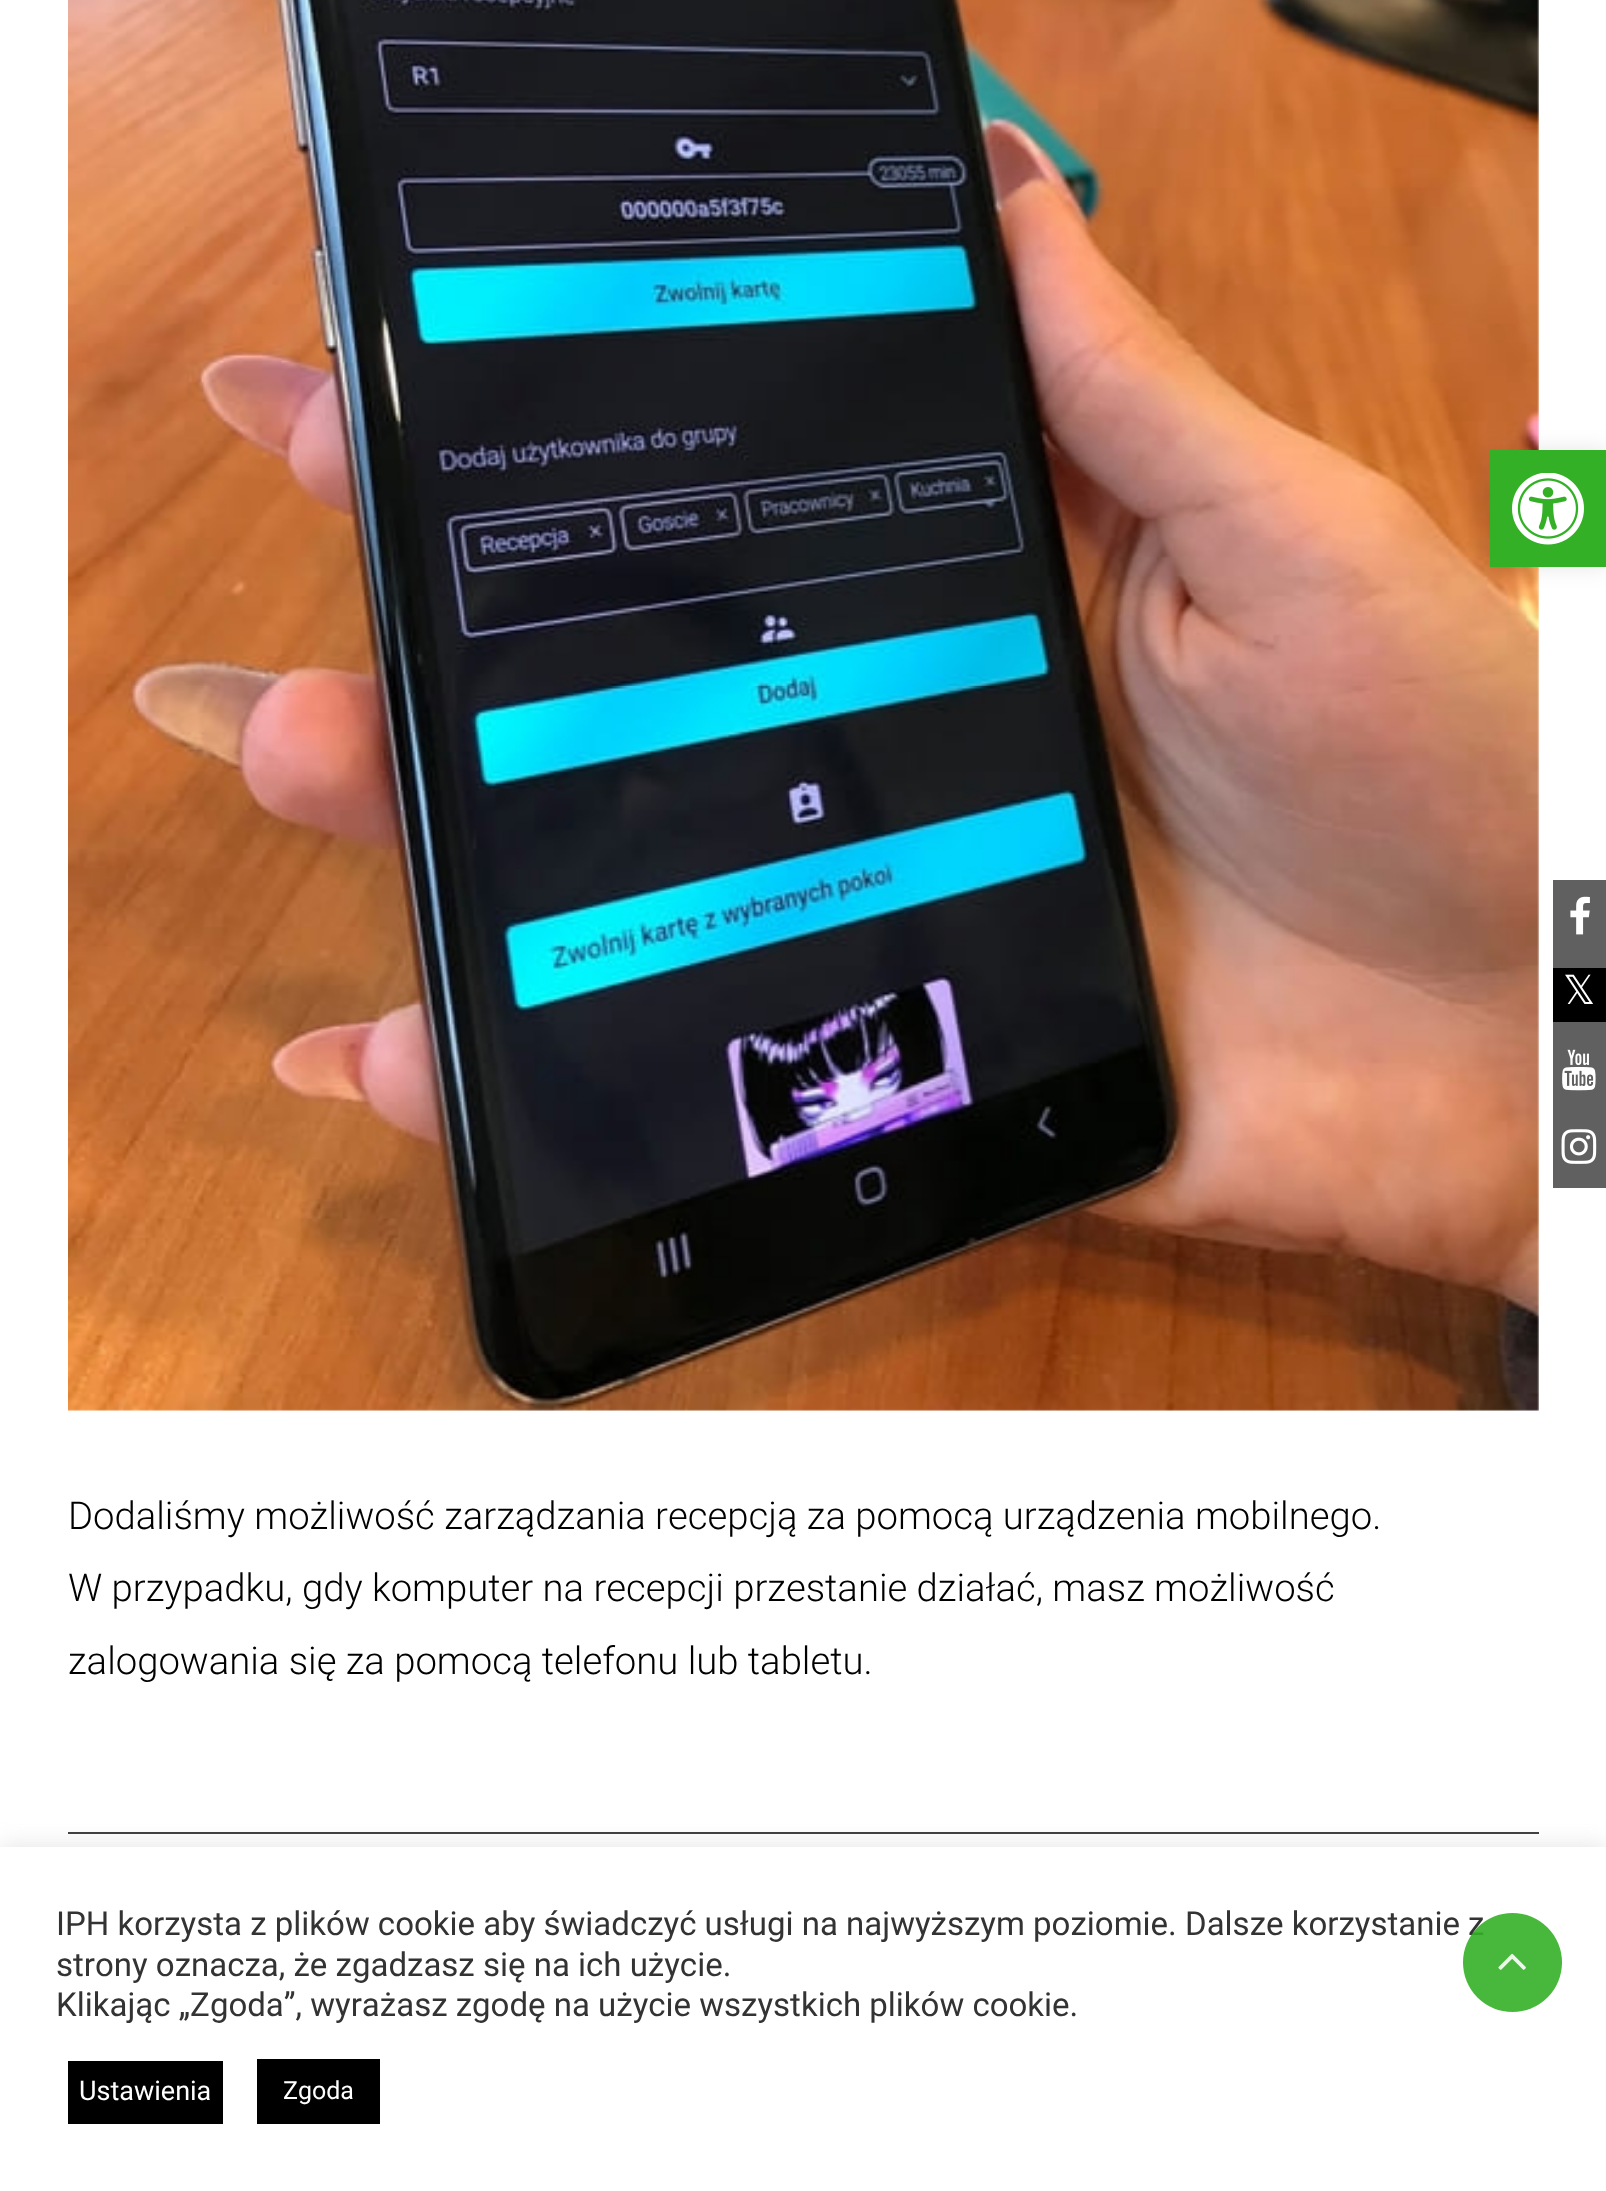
(async () => {
    const canvas = document.querySelector("canvas");
    canvas.width = 1606;
    canvas.height = 2191;
    const context = canvas.getContext("2d");
    context.miterLimit = 4;
    context.fontKerning = "none";
    function write(s, x, y, font, color) {
        context.font = font;
        context.fillStyle = color;
        context.fillText(s, x, y);
    }
    function block(x, y, w, h, color) {
        context.fillStyle = color;
        context.fillRect(x, y, w, h);
    }
    async function photo(src, x, y, w, h) {
        const img = new Image();
        img.src = src;
        await img.decode();
        context.drawImage(img, x, y, w, h);
    }

    block(0, 0, 1606, 2191, "rgb(255, 255, 255)");
    await photo("media/5.png", 68, 0, 1471, 1411);
    context.fillStyle = "rgba(0, 0, 0, 0.1)";
    context.filter = "blur(11px)";
    context.beginPath();
    context.rect(1490, 450, 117, 117);
    context.fill();
    context.filter = "none";
    block(1490, 450, 116, 117, "rgb(51, 176, 38)");
    await photo("media/1.png", 1512, 473, 72, 72);
    block(1553, 880, 53, 308, "rgb(96, 96, 96)");
    await photo("media/2.png", 1570, 896, 20, 39);
    block(1553, 968, 53, 54, "rgb(0, 0, 0)");
    write("𝕏", 1563, 1004, "40px DejaVu Sans", "rgb(255, 255, 255)");
    await photo("media/3.png", 1562, 1049, 34, 42);
    await photo("media/4.png", 1561, 1129, 36, 35);
    block(68, 1832, 1471, 2, "rgb(62, 62, 62)");
    context.fillStyle = "rgba(172, 171, 171, 0.3)";
    context.filter = "blur(11px)";
    context.beginPath();
    context.rect(0, 1845, 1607, 344);
    context.fill();
    context.filter = "none";
    block(0, 1847, 1606, 344, "rgb(255, 255, 255)");
    write("IPH korzysta z plików cookie aby świadczyć usługi na najwyższym poziomie. Dalsze korzystanie z", 56, 1935, "33px Roboto", "rgb(51, 51, 51)");
    write("strony oznacza, że zgadzasz się na ich użycie.", 56, 1976, "33px Roboto", "rgb(51, 51, 51)");
    write("Klikając „Zgoda”, wyrażasz zgodę na użycie wszystkich plików cookie.", 56, 2016, "33px Roboto", "rgb(51, 51, 51)");
    block(68, 2061, 155, 63, "rgb(0, 0, 0)");
    write("Ustawienia", 79, 2100, "27px Roboto", "rgb(255, 255, 255)");
    block(257, 2059, 123, 65, "rgb(0, 0, 0)");
    write("Zgoda", 283, 2099, "25px Roboto", "rgb(255, 255, 255)");
    write("Dodaliśmy możliwość zarządzania recepcją za pomocą urządzenia mobilnego.", 68, 1529, "300 38.25px Roboto", "rgb(0, 0, 0)");
    write("W przypadku, gdy komputer na recepcji przestanie działać, masz możliwość", 68, 1601, "300 38.25px Roboto", "rgb(0, 0, 0)");
    write("zalogowania się za pomocą telefonu lub tabletu.", 68, 1674, "300 38.25px Roboto", "rgb(0, 0, 0)");
    context.fillStyle = "rgba(51, 176, 38, 0.9)";
    context.beginPath();
    context.arc(1512.5, 1962.5, 49.5, 0, Math.PI * 2);
    context.fill();
    await photo("media/6.png", 1498, 1953, 28, 17);
})();
